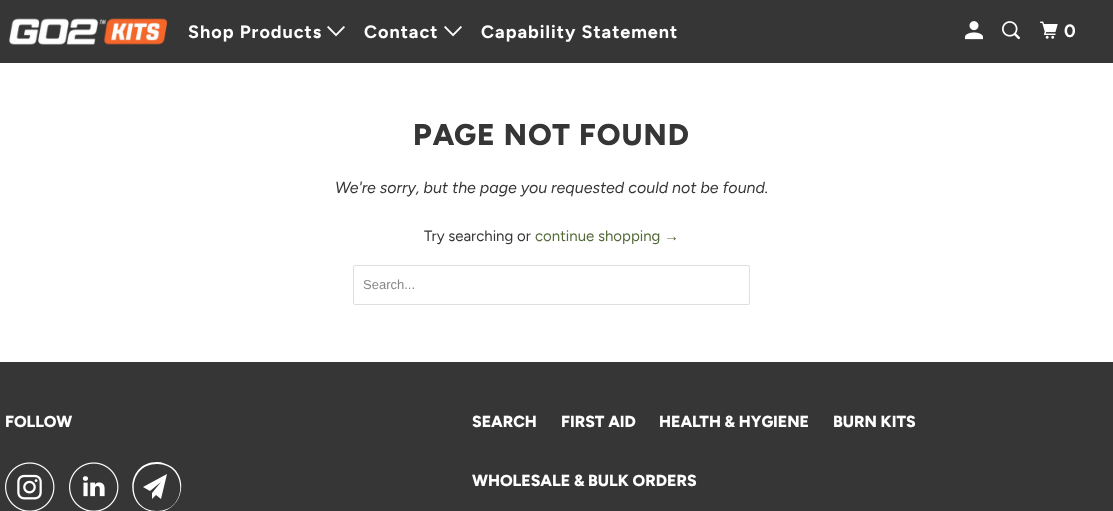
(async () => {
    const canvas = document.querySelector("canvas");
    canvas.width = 1113;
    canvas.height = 511;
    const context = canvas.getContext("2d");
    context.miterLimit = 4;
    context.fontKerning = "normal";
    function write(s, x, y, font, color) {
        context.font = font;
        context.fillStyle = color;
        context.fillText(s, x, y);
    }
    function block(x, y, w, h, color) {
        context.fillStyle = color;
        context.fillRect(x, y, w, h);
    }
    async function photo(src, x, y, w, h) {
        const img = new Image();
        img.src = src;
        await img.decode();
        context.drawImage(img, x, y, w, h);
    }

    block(0, 0, 1113, 511, "rgb(255, 255, 255)");
    block(0, 0, 1113, 63, "rgb(54, 54, 54)");
    await photo("media/1.png", 9, 18, 159, 27);
    context.letterSpacing = "1px";
    write("Shop Products", 188, 38, "bold 18px Figtree", "rgb(255, 255, 255)");
    await photo("media/2.png", 327, 26, 18, 11);
    write("Contact", 364, 38, "bold 18px Figtree", "rgb(255, 255, 255)");
    await photo("media/2.png", 444, 26, 18, 11);
    write("Capability Statement", 481, 38, "bold 18px Figtree", "rgb(255, 255, 255)");
    await photo("media/3.png", 965, 21, 18, 19);
    await photo("media/4.png", 1002, 21, 18, 19);
    await photo("media/5.png", 1040, 21, 18, 18);
    write("0", 1064, 37, "bold 18px Figtree", "rgb(255, 255, 255)");
    write("PAGE NOT FOUND", 413, 145, "800 30px Figtree", "rgb(54, 54, 54)");
    context.letterSpacing = "0px";
    write("We're sorry, but the page you requested could not be found.", 335, 193, "italic 16px Figtree", "rgb(54, 54, 54)");
    write("Try searching or", 424, 241, "15px Figtree", "rgb(54, 54, 54)");
    write("continue shopping", 535, 241, "15px Figtree", "rgb(84, 106, 58)");
    write("→", 664, 241, "15px Liberation Sans", "rgb(84, 106, 58)");
    context.beginPath();
    context.roundRect(353.5, 265.5, 396, 39, 1.5);
    context.strokeStyle = "rgb(223, 223, 223)";
    context.stroke();
    write("Search...", 363, 289, "13px Liberation Sans", "rgb(136, 136, 136)");
    block(0, 362, 1113, 149, "rgb(54, 54, 54)");
    write("FOLLOW", 5, 427, "800 16px Figtree", "rgb(255, 255, 255)");
    await photo("media/6.png", 5, 462, 50, 49);
    await photo("media/7.png", 69, 462, 50, 49);
    context.beginPath();
    context.moveTo(161, 499);
    context.lineTo(156, 495);
    context.lineTo(152, 499);
    context.lineTo(152, 493);
    context.lineTo(161, 482);
    context.lineTo(150, 491);
    context.lineTo(143, 487);
    context.lineTo(167, 474);
    context.closePath();
    context.moveTo(157, 464);
    context.bezierCurveTo(126, 464, 126, 511, 157, 511);
    context.bezierCurveTo(188, 511, 188, 464, 157, 464);
    context.closePath();
    context.moveTo(157, 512);
    context.bezierCurveTo(124, 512, 124, 462, 157, 462);
    context.bezierCurveTo(162, 462, 167, 464, 172, 467);
    context.bezierCurveTo(190, 481, 180, 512, 157, 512);
    context.closePath();
    context.fill();
    write("SEARCH", 472, 427, "800 16px Figtree", "rgb(255, 255, 255)");
    write("FIRST AID", 561, 427, "800 16px Figtree", "rgb(255, 255, 255)");
    write("HEALTH & HYGIENE", 659, 427, "800 16px Figtree", "rgb(255, 255, 255)");
    write("BURN KITS", 833, 427, "800 16px Figtree", "rgb(255, 255, 255)");
    write("WHOLESALE & BULK ORDERS", 472, 486, "800 16px Figtree", "rgb(255, 255, 255)");
})();
